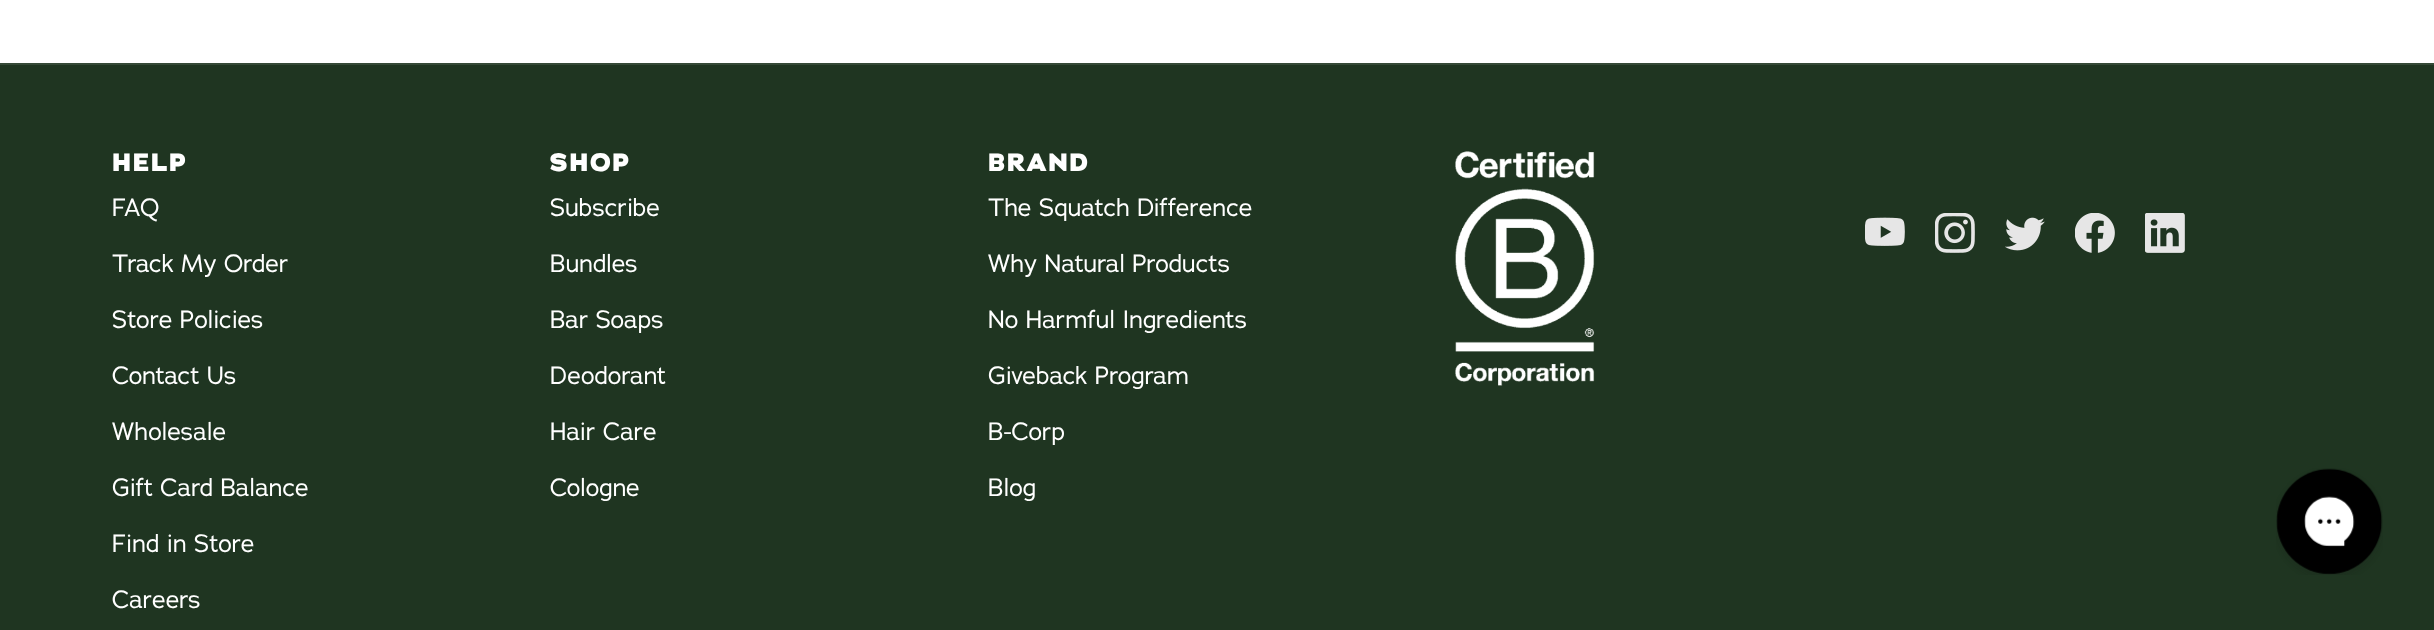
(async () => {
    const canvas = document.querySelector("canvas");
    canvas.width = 2434;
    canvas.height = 630;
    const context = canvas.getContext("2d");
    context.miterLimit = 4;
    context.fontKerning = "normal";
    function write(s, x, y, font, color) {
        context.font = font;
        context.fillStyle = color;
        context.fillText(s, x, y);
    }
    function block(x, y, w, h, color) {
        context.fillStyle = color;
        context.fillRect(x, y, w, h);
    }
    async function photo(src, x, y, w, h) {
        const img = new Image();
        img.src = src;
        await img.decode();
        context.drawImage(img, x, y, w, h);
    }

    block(0, 0, 2434, 630, "rgb(255, 255, 255)");
    block(0, 65, 2434, 565, "rgb(31, 53, 33)");
    block(0, 63, 2434, 2, "rgb(53, 73, 55)");
    context.letterSpacing = "1.25px";
    write("HELP", 112, 171, "800 25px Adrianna", "rgb(255, 255, 255)");
    context.letterSpacing = "0px";
    write("FAQ", 112, 216, "24.5px Adrianna", "rgb(255, 255, 255)");
    write("Track My Order", 112, 272, "24.5px Adrianna", "rgb(255, 255, 255)");
    write("Store Policies", 112, 328, "24.5px Adrianna", "rgb(255, 255, 255)");
    write("Contact Us", 112, 384, "24.5px Adrianna", "rgb(255, 255, 255)");
    write("Wholesale", 112, 440, "24.5px Adrianna", "rgb(255, 255, 255)");
    write("Gift Card Balance", 112, 496, "24.5px Adrianna", "rgb(255, 255, 255)");
    write("Find in Store", 112, 552, "24.5px Adrianna", "rgb(255, 255, 255)");
    write("Careers", 112, 608, "24.5px Adrianna", "rgb(255, 255, 255)");
    context.letterSpacing = "1.25px";
    write("SHOP", 550, 171, "800 25px Adrianna", "rgb(255, 255, 255)");
    context.letterSpacing = "0px";
    write("Subscribe", 550, 216, "24.5px Adrianna", "rgb(255, 255, 255)");
    write("Bundles", 550, 272, "24.5px Adrianna", "rgb(255, 255, 255)");
    write("Bar Soaps", 550, 328, "24.5px Adrianna", "rgb(255, 255, 255)");
    write("Deodorant", 550, 384, "24.5px Adrianna", "rgb(255, 255, 255)");
    write("Hair Care", 550, 440, "24.5px Adrianna", "rgb(255, 255, 255)");
    write("Cologne", 550, 496, "24.5px Adrianna", "rgb(255, 255, 255)");
    context.letterSpacing = "1.25px";
    write("BRAND", 988, 171, "800 25px Adrianna", "rgb(255, 255, 255)");
    context.letterSpacing = "0px";
    write("The Squatch Difference", 988, 216, "24.5px Adrianna", "rgb(255, 255, 255)");
    write("Why Natural Products", 988, 272, "24.5px Adrianna", "rgb(255, 255, 255)");
    write("No Harmful Ingredients", 988, 328, "24.5px Adrianna", "rgb(255, 255, 255)");
    write("Giveback Program", 988, 384, "24.5px Adrianna", "rgb(255, 255, 255)");
    write("B-Corp", 988, 440, "24.5px Adrianna", "rgb(255, 255, 255)");
    write("Blog", 988, 496, "24.5px Adrianna", "rgb(255, 255, 255)");
    await photo("media/1.png", 1455, 151, 140, 235);
    await photo("media/2.png", 1865, 217, 40, 29);
    await photo("media/3.png", 1935, 213, 40, 40);
    await photo("media/4.png", 2005, 217, 40, 34);
    await photo("media/5.png", 2075, 213, 40, 40);
    await photo("media/6.png", 2145, 213, 40, 40);
    await photo("media/7.png", 2276, 468, 107, 107);
})();
